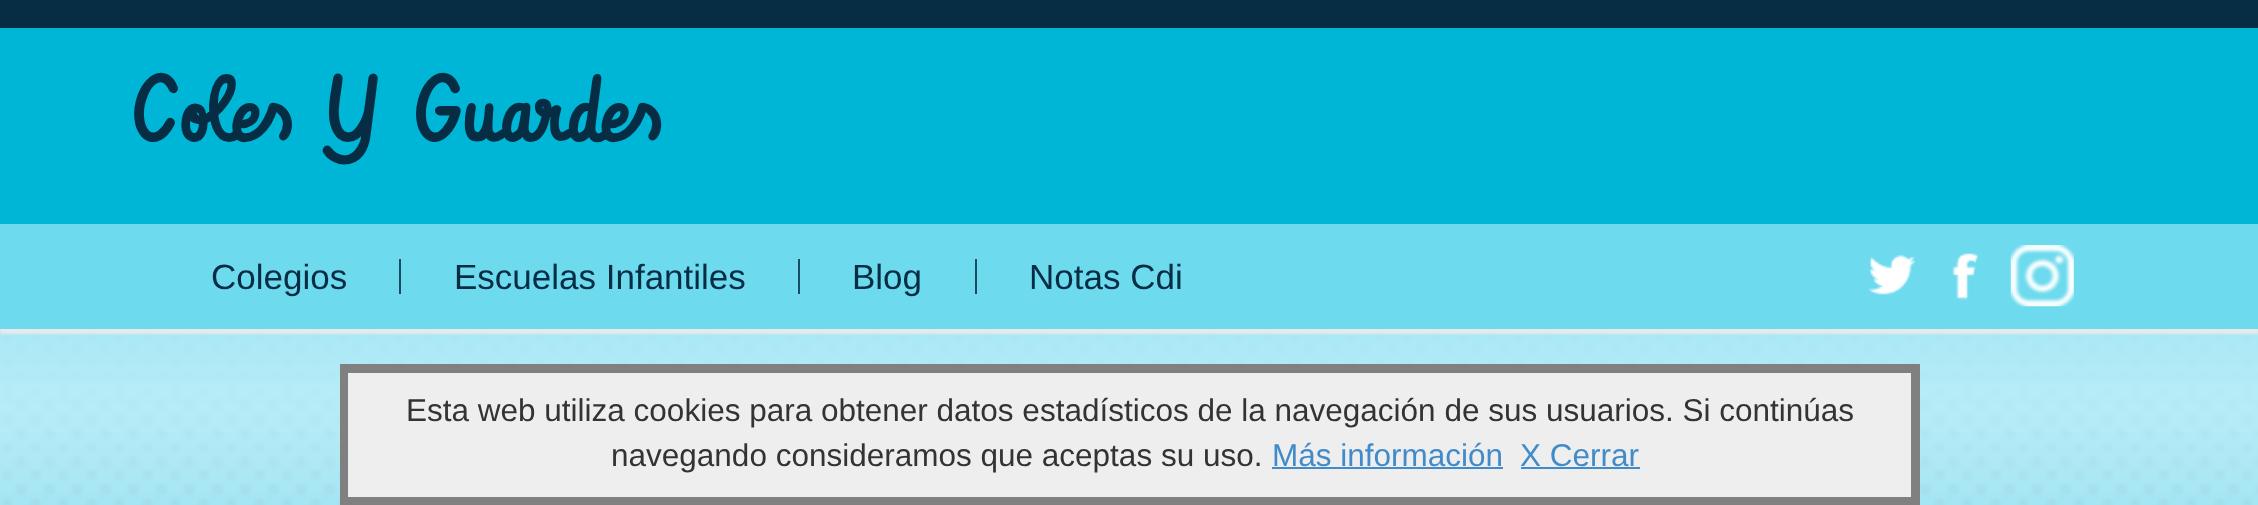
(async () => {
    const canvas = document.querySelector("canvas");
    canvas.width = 2258;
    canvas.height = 505;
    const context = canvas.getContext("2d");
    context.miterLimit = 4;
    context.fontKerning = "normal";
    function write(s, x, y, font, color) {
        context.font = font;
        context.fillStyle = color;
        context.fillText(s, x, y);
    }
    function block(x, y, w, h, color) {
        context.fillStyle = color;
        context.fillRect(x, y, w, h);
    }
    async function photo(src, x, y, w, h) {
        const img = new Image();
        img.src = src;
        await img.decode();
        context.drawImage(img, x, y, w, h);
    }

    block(0, 0, 2258, 505, "rgb(255, 255, 255)");
    block(0, 28, 2258, 196, "rgb(0, 182, 215)");
    block(0, 0, 2258, 28, "rgb(6, 45, 68)");
    write("Coles Y Guardes", 132, 142, "bold 87.5px Vibur", "rgb(6, 45, 68)");
    await photo("media/4.png", 0, 329, 2258, 176);
    context.fillStyle = "rgb(230, 234, 236)";
    context.filter = "blur(1px)";
    context.beginPath();
    context.rect(0, 229, 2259, 105);
    context.fill();
    context.filter = "none";
    block(0, 224, 2258, 105, "rgb(109, 218, 238)");
    write("Colegios", 211, 289, "35px Liberation Sans", "rgb(6, 45, 68)");
    block(399, 259, 2, 35, "rgb(24, 76, 98)");
    write("Escuelas Infantiles", 454, 289, "35px Liberation Sans", "rgb(6, 45, 68)");
    block(798, 259, 2, 35, "rgb(24, 76, 98)");
    write("Blog", 852, 289, "35px Liberation Sans", "rgb(6, 45, 68)");
    block(975, 259, 2, 35, "rgb(24, 76, 98)");
    write("Notas Cdi", 1029, 289, "35px Liberation Sans", "rgb(6, 45, 68)");
    await photo("media/1.png", 1868, 255, 48, 40);
    await photo("media/2.png", 1952, 253, 26, 47);
    await photo("media/3.png", 2010, 245, 64, 62);
    context.strokeStyle = "rgb(128, 128, 128)";
    context.lineWidth = 9;
    context.strokeRect(344.5, 368.5, 1571, 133);
    block(348, 373, 1563, 124, "rgb(238, 238, 238)");
    write("Esta web utiliza cookies para obtener datos estadísticos de la navegación de sus usuarios. Si continúas", 406, 421, "31.5px Liberation Sans", "rgb(51, 51, 51)");
    write("navegando consideramos que aceptas su uso.", 611, 466, "31.5px Liberation Sans", "rgb(51, 51, 51)");
    write("Más información", 1272, 466, "31.5px Liberation Sans", "rgb(66, 139, 202)");
    block(1272, 467, 231, 2, "rgb(66, 139, 202)");
    write("X Cerrar", 1520, 466, "31.5px Liberation Sans", "rgb(66, 139, 202)");
    block(1521, 467, 119, 2, "rgb(66, 139, 202)");
})();
